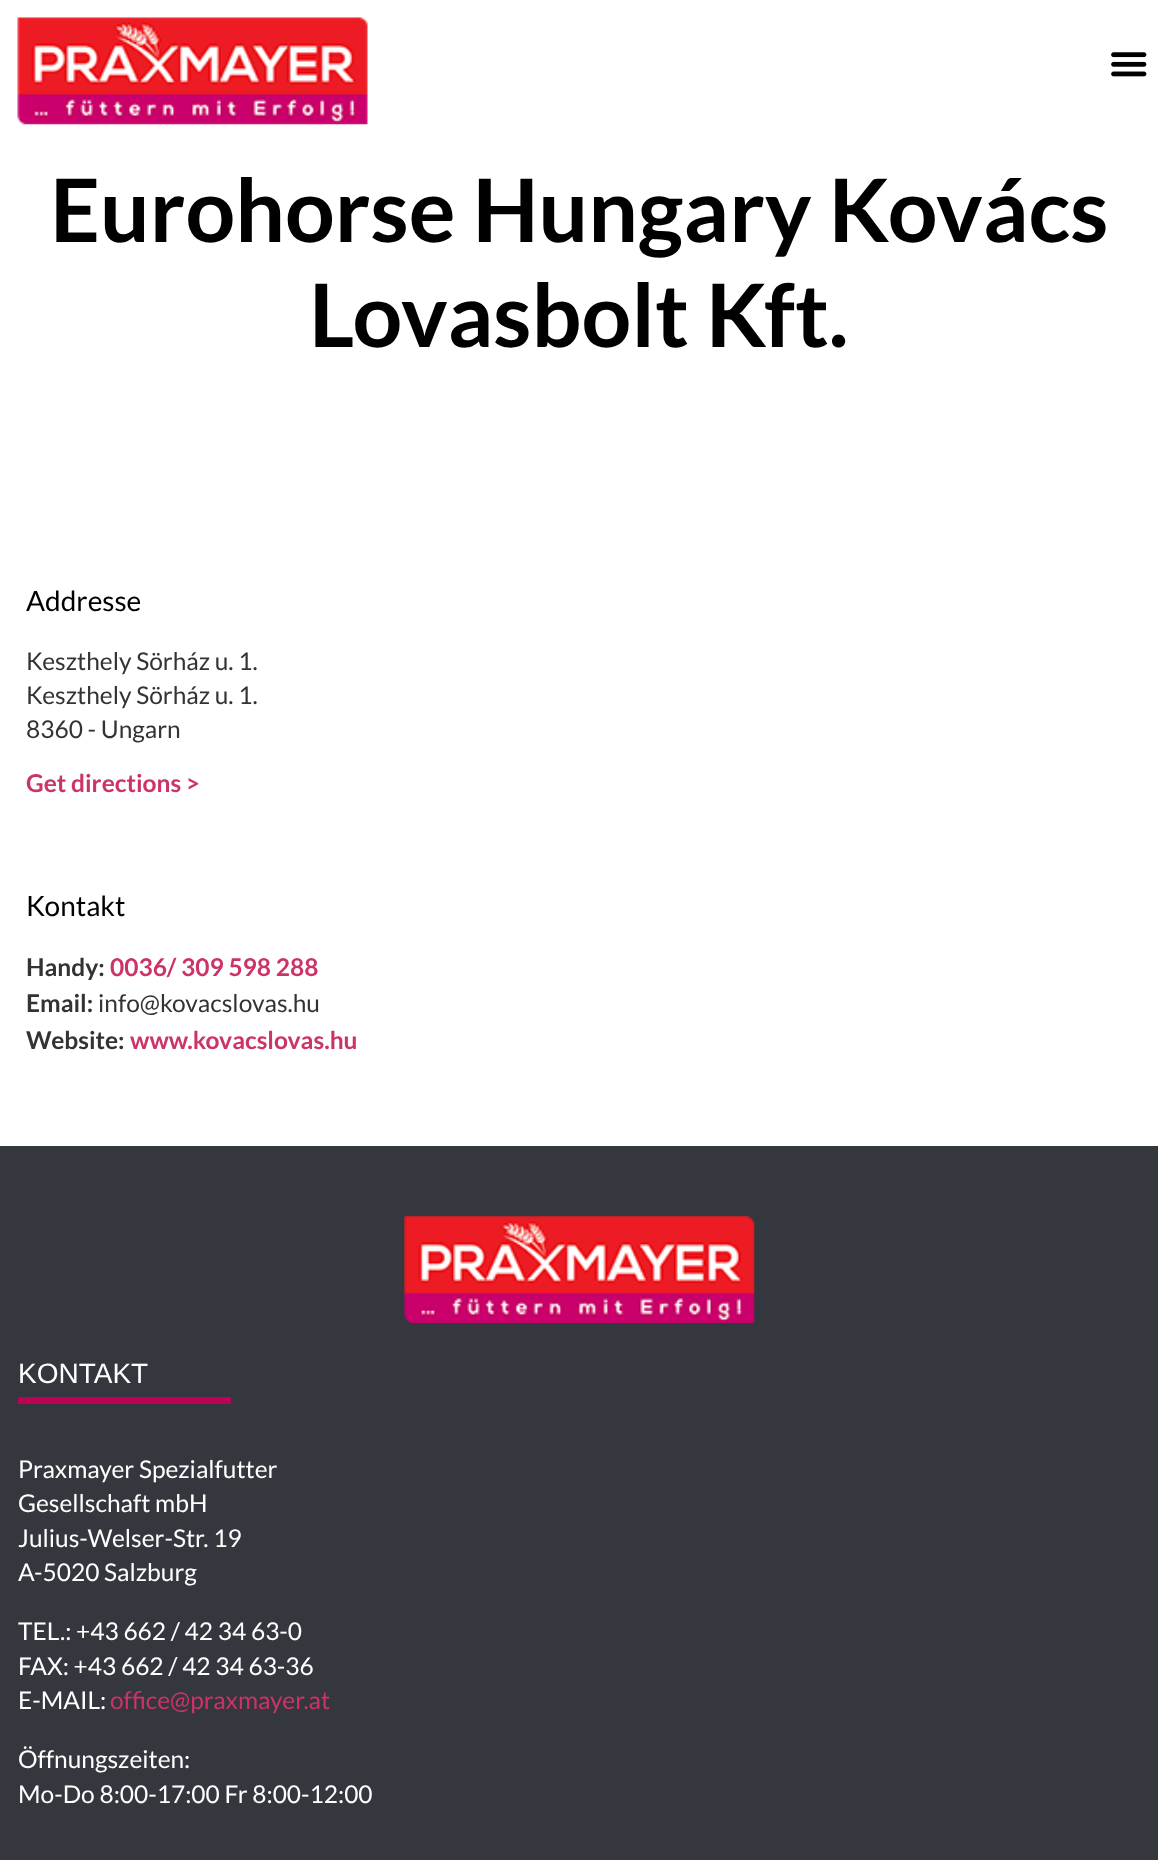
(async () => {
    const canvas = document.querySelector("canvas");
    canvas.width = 1158;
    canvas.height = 1860;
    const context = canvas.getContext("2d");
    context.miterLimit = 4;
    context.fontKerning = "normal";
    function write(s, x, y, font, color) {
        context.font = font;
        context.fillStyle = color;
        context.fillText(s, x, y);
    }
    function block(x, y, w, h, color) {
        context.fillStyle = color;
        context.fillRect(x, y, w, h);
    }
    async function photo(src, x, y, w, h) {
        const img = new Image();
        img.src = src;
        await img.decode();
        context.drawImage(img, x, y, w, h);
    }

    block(0, 0, 1158, 1860, "rgb(255, 255, 255)");
    await photo("media/1.png", 17, 17, 351, 108);
    await photo("media/2.png", 1111, 52, 36, 25);
    write("Eurohorse Hungary Kovács", 50, 242, "bold 87.5px Lato", "rgb(0, 0, 0)");
    write("Lovasbolt Kft.", 309, 347, "bold 87.5px Lato", "rgb(0, 0, 0)");
    write("Addresse", 26, 611, "28px Lato", "rgb(0, 0, 0)");
    write("Keszthely Sörház u. 1.", 26, 670, "24.5px Lato", "rgb(51, 51, 51)");
    write("Keszthely Sörház u. 1.", 26, 704, "24.5px Lato", "rgb(51, 51, 51)");
    write("8360 - Ungarn", 26, 738, "24.5px Lato", "rgb(51, 51, 51)");
    write("Get directions >", 26, 792, "bold 24.5px Lato", "rgb(204, 51, 102)");
    write("Kontakt", 26, 916, "28px Lato", "rgb(0, 0, 0)");
    write("Handy:", 26, 976, "bold 24.5px Lato", "rgb(51, 51, 51)");
    write("0036/ 309 598 288", 110, 976, "bold 24.5px Lato", "rgb(204, 51, 102)");
    write("Email:", 26, 1012, "bold 24.5px Lato", "rgb(51, 51, 51)");
    write("info@kovacslovas.hu", 98, 1012, "24.5px Lato", "rgb(51, 51, 51)");
    write("Website:", 26, 1049, "bold 24.5px Lato", "rgb(51, 51, 51)");
    write("www.kovacslovas.hu", 130, 1049, "bold 24.5px Lato", "rgb(204, 51, 102)");
    block(0, 1146, 1158, 714, "rgb(52, 55, 61)");
    await photo("media/3.png", 404, 1216, 351, 107);
    write("KONTAKT", 18, 1383, "28px Liberation Sans", "rgb(255, 255, 255)");
    block(18, 1397, 213, 7, "rgb(188, 2, 84)");
    write("Praxmayer Spezialfutter", 18, 1478, "24.5px Lato", "rgb(255, 255, 255)");
    write("Gesellschaft mbH", 18, 1512, "24.5px Lato", "rgb(255, 255, 255)");
    write("Julius-Welser-Str. 19", 18, 1547, "24.5px Lato", "rgb(255, 255, 255)");
    write("A-5020 Salzburg", 18, 1581, "24.5px Lato", "rgb(255, 255, 255)");
    write("TEL.: +43 662 / 42 34 63-0", 18, 1640, "24.5px Lato", "rgb(255, 255, 255)");
    write("FAX: +43 662 / 42 34 63-36", 18, 1675, "24.5px Lato", "rgb(255, 255, 255)");
    write("E-MAIL:", 18, 1709, "24.5px Lato", "rgb(255, 255, 255)");
    write("office@praxmayer.at", 110, 1709, "24.5px Lato", "rgb(204, 51, 102)");
    write("Öffnungszeiten:", 18, 1768, "24.5px Lato", "rgb(255, 255, 255)");
    write("Mo-Do 8:00-17:00 Fr 8:00-12:00", 18, 1803, "24.5px Lato", "rgb(255, 255, 255)");
})();
